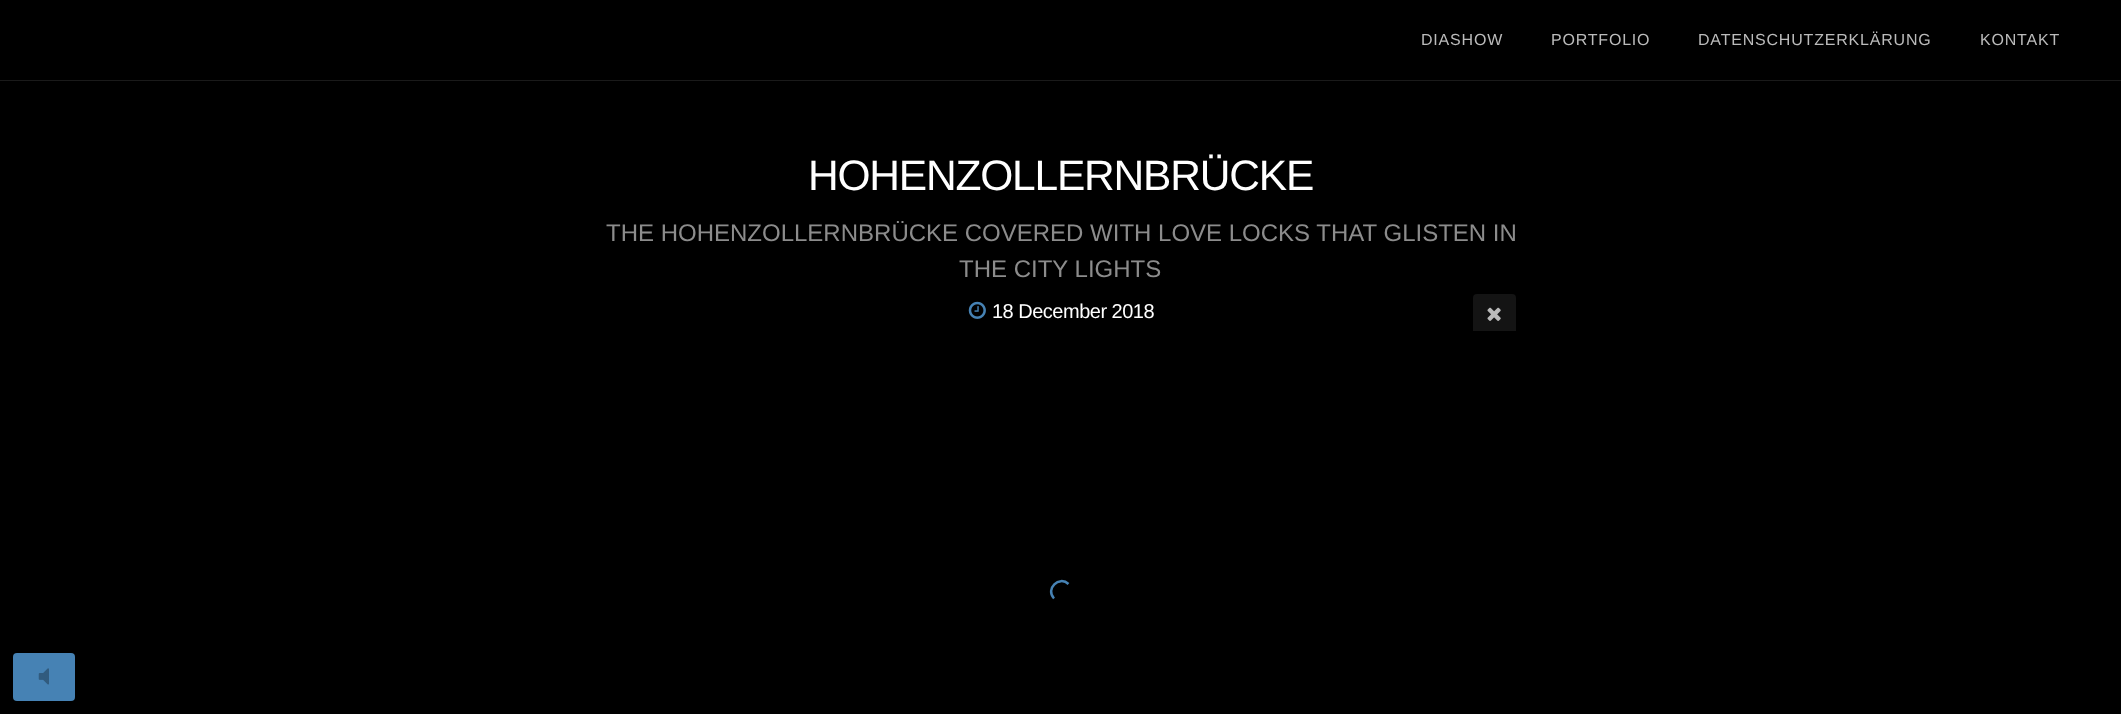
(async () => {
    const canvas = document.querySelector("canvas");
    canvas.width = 2121;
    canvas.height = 714;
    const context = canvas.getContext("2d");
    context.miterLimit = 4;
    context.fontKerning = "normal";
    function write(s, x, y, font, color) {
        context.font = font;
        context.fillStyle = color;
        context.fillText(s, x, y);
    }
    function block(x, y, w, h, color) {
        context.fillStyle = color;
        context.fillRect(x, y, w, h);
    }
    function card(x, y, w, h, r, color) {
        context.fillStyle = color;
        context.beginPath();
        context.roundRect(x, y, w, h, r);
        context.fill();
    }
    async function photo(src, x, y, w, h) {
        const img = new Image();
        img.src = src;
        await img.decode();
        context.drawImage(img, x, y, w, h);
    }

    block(0, 0, 2121, 714, "rgb(0, 0, 0)");
    block(0, 80, 2121, 1, "rgb(26, 26, 26)");
    context.letterSpacing = "0.8px";
    write("DIASHOW", 1421, 45, "16px Liberation Sans", "rgb(187, 187, 187)");
    write("PORTFOLIO", 1551, 45, "16px Liberation Sans", "rgb(187, 187, 187)");
    write("DATENSCHUTZERKLÄRUNG", 1698, 45, "16px Liberation Sans", "rgb(187, 187, 187)");
    write("KONTAKT", 1980, 45, "16px Liberation Sans", "rgb(187, 187, 187)");
    context.letterSpacing = "-1.2px";
    write("HOHENZOLLERNBRÜCKE", 808, 190, "42.5px Liberation Sans", "rgb(255, 255, 255)");
    context.letterSpacing = "0px";
    write("THE HOHENZOLLERNBRÜCKE COVERED WITH LOVE LOCKS THAT GLISTEN IN", 606, 241, "24px Liberation Sans", "rgb(140, 140, 140)");
    write("THE CITY LIGHTS", 959, 277, "24px Liberation Sans", "rgb(140, 140, 140)");
    await photo("media/1.png", 968, 301, 18, 18);
    context.letterSpacing = "-0.5px";
    write("18 December 2018", 992, 318, "20px Liberation Sans", "rgb(255, 255, 255)");
    context.fillStyle = "rgb(20, 20, 20)";
    context.beginPath();
    context.roundRect(1473, 294, 43, 39, [4, 4, 0, 0]);
    context.fill();
    await photo("media/2.png", 1487, 307, 14, 14);
    block(1473, 331, 43, 2, "rgb(0, 0, 0)");
    context.beginPath();
    context.moveTo(1054, 598.5);
    context.bezierCurveTo(1045, 589, 1059, 575, 1068.5, 584);
    context.strokeStyle = "rgb(70, 130, 180)";
    context.lineWidth = 2.5;
    context.stroke();
    card(13, 653, 62, 48, 4, "rgb(70, 130, 180)");
    await photo("media/3.png", 38, 668, 11, 17);
})();
